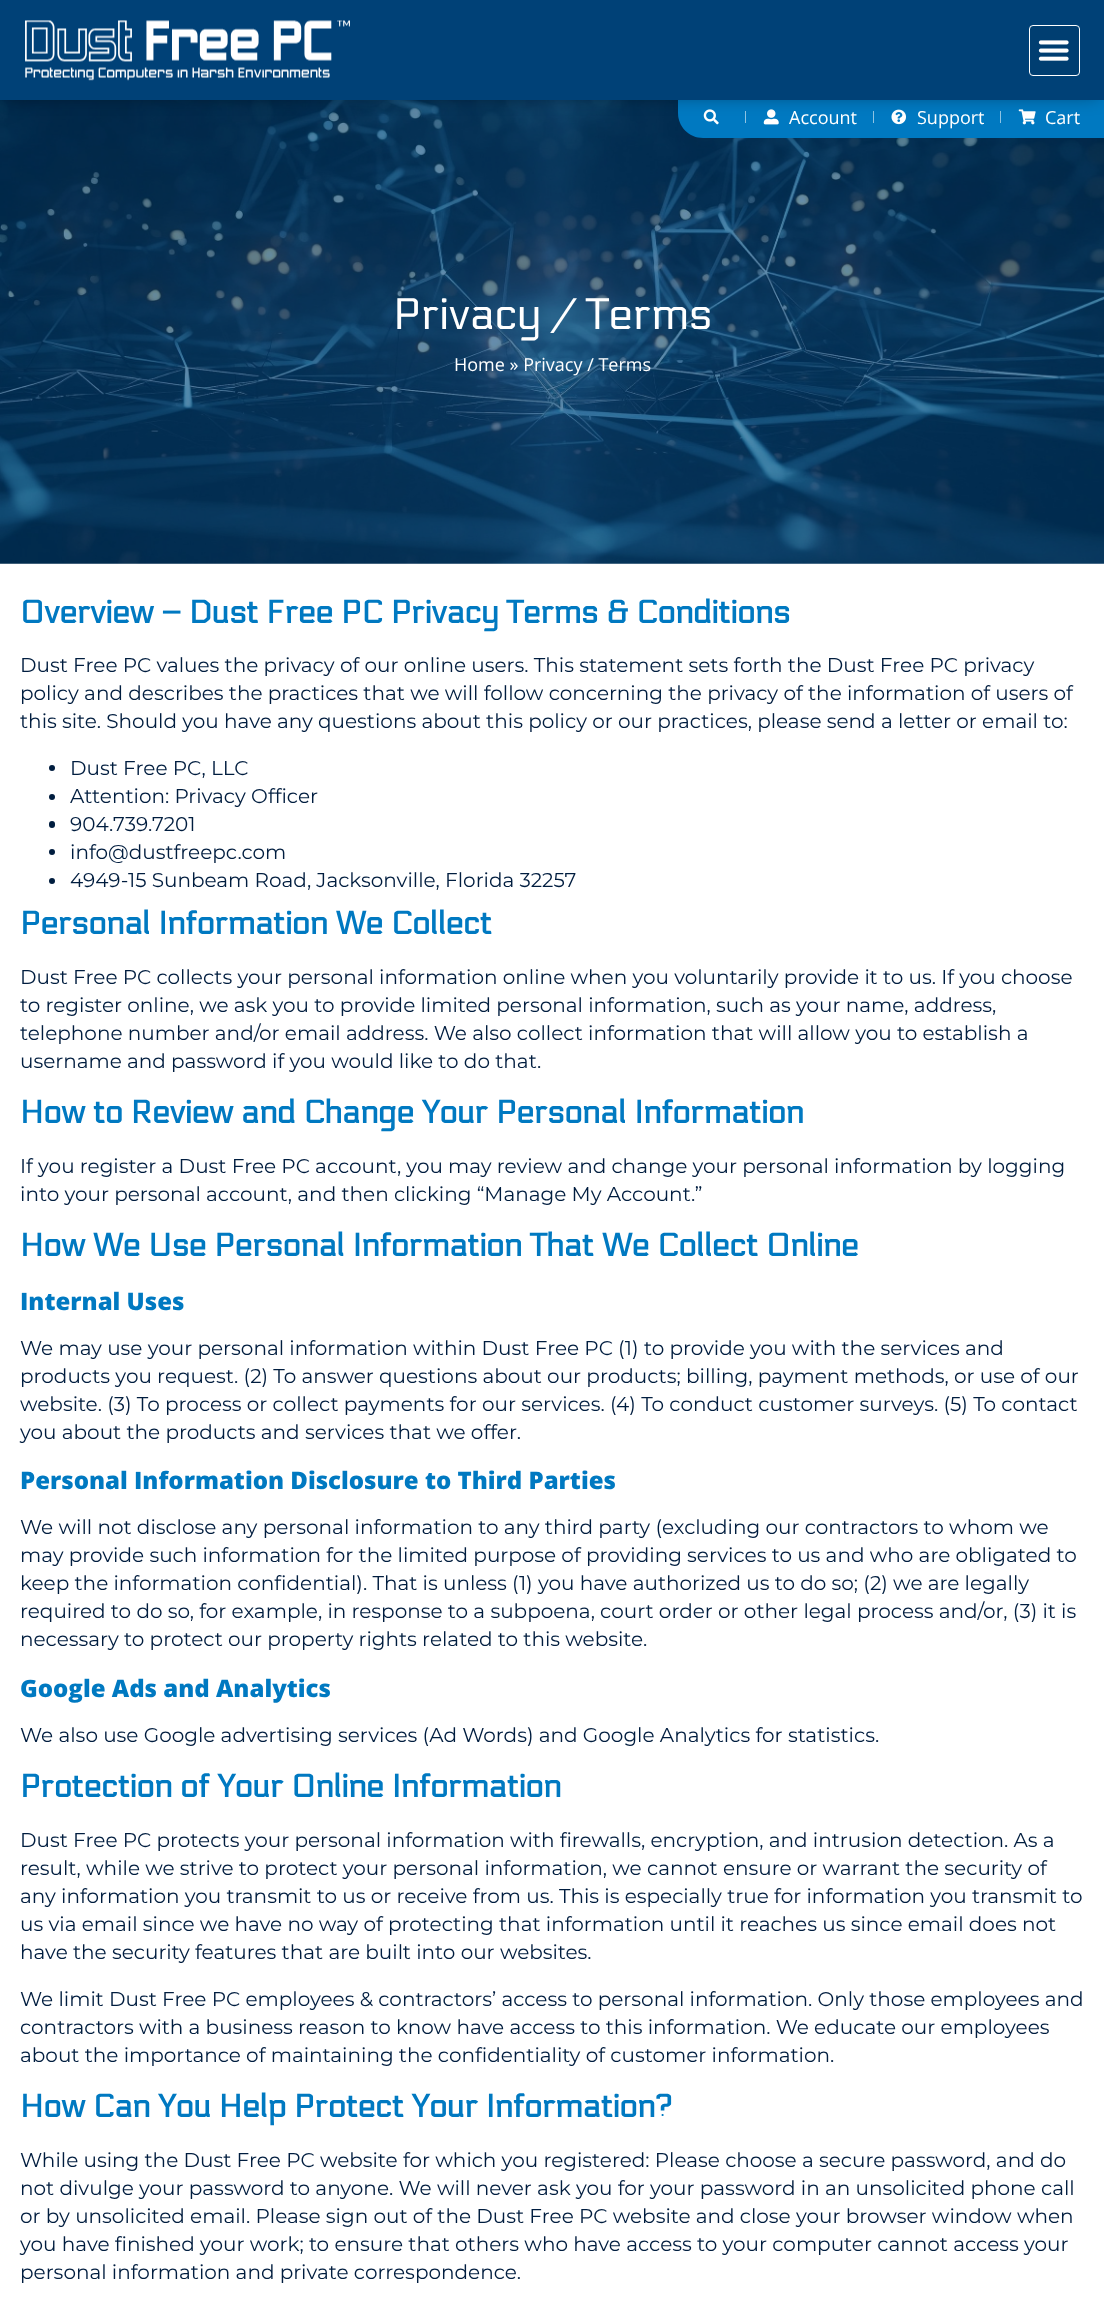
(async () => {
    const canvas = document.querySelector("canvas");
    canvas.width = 1104;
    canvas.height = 2320;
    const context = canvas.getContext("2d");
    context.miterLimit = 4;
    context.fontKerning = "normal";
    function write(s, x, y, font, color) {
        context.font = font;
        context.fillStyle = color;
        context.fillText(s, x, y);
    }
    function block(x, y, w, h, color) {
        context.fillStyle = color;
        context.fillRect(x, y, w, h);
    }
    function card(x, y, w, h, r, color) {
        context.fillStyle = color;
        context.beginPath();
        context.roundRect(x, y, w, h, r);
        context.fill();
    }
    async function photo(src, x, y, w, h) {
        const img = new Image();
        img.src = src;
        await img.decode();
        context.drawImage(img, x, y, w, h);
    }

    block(0, 0, 1104, 2320, "rgb(255, 255, 255)");
    await photo("media/7.png", 0, 100, 1104, 464);
    context.fillStyle = "rgb(0, 121, 193)";
    context.beginPath();
    context.moveTo(678, 100);
    context.lineTo(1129, 100);
    context.lineTo(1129, 138);
    context.lineTo(703, 138);
    context.bezierCurveTo(689, 138, 678, 127, 678, 113);
    context.closePath();
    context.fill();
    await photo("media/3.png", 703, 109, 16, 16);
    block(745, 111, 1, 12, "rgb(143, 196, 228)");
    await photo("media/4.png", 763, 109, 16, 16);
    block(873, 111, 1, 12, "rgb(143, 196, 228)");
    await photo("media/5.png", 891, 109, 15, 16);
    block(1000, 111, 1, 12, "rgb(143, 196, 228)");
    await photo("media/6.png", 1018, 109, 18, 16);
    context.fillStyle = "rgba(0, 0, 0, 0.5)";
    context.filter = "blur(9.5px)";
    context.beginPath();
    context.rect(6, 6, 1093, 88);
    context.fill();
    context.filter = "none";
    block(0, 0, 1104, 100, "rgb(0, 65, 119)");
    await photo("media/1.png", 25, 20, 325, 61);
    context.fillStyle = "rgb(0, 62, 113)";
    context.beginPath();
    context.roundRect(1029.5, 25.5, 50, 50, 3.5);
    context.fill();
    context.strokeStyle = "rgb(255, 255, 255)";
    context.stroke();
    await photo("media/2.png", 1038, 40, 31, 21);
    write("Account", 789, 124, "18px Open Sans", "rgb(255, 255, 255)");
    write("Support", 917, 124, "18px Open Sans", "rgb(255, 255, 255)");
    write("Cart", 1045, 124, "18px Open Sans", "rgb(255, 255, 255)");
    write("Privacy / Terms", 393, 329, "44px Electrolize", "rgb(255, 255, 255)");
    write("Home » Privacy / Terms", 454, 371, "18px Open Sans", "rgb(255, 255, 255)");
    write("Overview – Dust Free PC Privacy Terms & Conditions", 20, 623, "bold 32px Electrolize", "rgb(0, 121, 193)");
    write("Dust Free PC values the privacy of our online users. This statement sets forth the Dust Free PC privacy", 20, 672, "20px Montserrat", "rgb(0, 29, 63)");
    write("policy and describes the practices that we will follow concerning the privacy of the information of users of", 20, 700, "20px Montserrat", "rgb(0, 29, 63)");
    write("this site. Should you have any questions about this policy or our practices, please send a letter or email to:", 20, 728, "20px Montserrat", "rgb(0, 29, 63)");
    context.beginPath();
    context.arc(52, 768, 3, 0, Math.PI * 2);
    context.fill();
    write("Dust Free PC, LLC", 70, 775, "20px Montserrat", "rgb(0, 29, 63)");
    context.beginPath();
    context.arc(52, 797, 3, 0, Math.PI * 2);
    context.fill();
    write("Attention: Privacy Officer", 70, 803, "20px Montserrat", "rgb(0, 29, 63)");
    card(49, 821, 6, 7, 3, "rgb(0, 29, 63)");
    write("904.739.7201", 70, 831, "20px Montserrat", "rgb(0, 29, 63)");
    context.beginPath();
    context.arc(52, 852, 3, 0, Math.PI * 2);
    context.fill();
    write("info@dustfreepc.com", 70, 859, "20px Montserrat", "rgb(0, 29, 63)");
    context.beginPath();
    context.arc(52, 881, 3, 0, Math.PI * 2);
    context.fill();
    write("4949-15 Sunbeam Road, Jacksonville, Florida 32257", 70, 887, "20px Montserrat", "rgb(0, 29, 63)");
    write("Personal Information We Collect", 20, 934, "bold 32px Electrolize", "rgb(0, 121, 193)");
    write("Dust Free PC collects your personal information online when you voluntarily provide it to us. If you choose", 20, 984, "20px Montserrat", "rgb(0, 29, 63)");
    write("to register online, we ask you to provide limited personal information, such as your name, address,", 20, 1012, "20px Montserrat", "rgb(0, 29, 63)");
    write("telephone number and/or email address. We also collect information that will allow you to establish a", 20, 1040, "20px Montserrat", "rgb(0, 29, 63)");
    write("username and password if you would like to do that.", 20, 1068, "20px Montserrat", "rgb(0, 29, 63)");
    write("How to Review and Change Your Personal Information", 20, 1123, "bold 32px Electrolize", "rgb(0, 121, 193)");
    write("If you register a Dust Free PC account, you may review and change your personal information by logging", 20, 1173, "20px Montserrat", "rgb(0, 29, 63)");
    write("into your personal account, and then clicking “Manage My Account.”", 20, 1201, "20px Montserrat", "rgb(0, 29, 63)");
    write("How We Use Personal Information That We Collect Online", 20, 1256, "bold 32px Electrolize", "rgb(0, 121, 193)");
    write("Internal Uses", 20, 1310, "800 24px Open Sans", "rgb(0, 121, 193)");
    write("We may use your personal information within Dust Free PC (1) to provide you with the services and", 20, 1355, "20px Montserrat", "rgb(0, 29, 63)");
    write("products you request. (2) To answer questions about our products; billing, payment methods, or use of our", 20, 1383, "20px Montserrat", "rgb(0, 29, 63)");
    write("website. (3) To process or collect payments for our services. (4) To conduct customer surveys. (5) To contact", 20, 1411, "20px Montserrat", "rgb(0, 29, 63)");
    write("you about the products and services that we offer.", 20, 1439, "20px Montserrat", "rgb(0, 29, 63)");
    write("Personal Information Disclosure to Third Parties", 20, 1489, "800 24px Open Sans", "rgb(0, 121, 193)");
    write("We will not disclose any personal information to any third party (excluding our contractors to whom we", 20, 1534, "20px Montserrat", "rgb(0, 29, 63)");
    write("may provide such information for the limited purpose of providing services to us and who are obligated to", 20, 1562, "20px Montserrat", "rgb(0, 29, 63)");
    write("keep the information confidential). That is unless (1) you have authorized us to do so; (2) we are legally", 20, 1590, "20px Montserrat", "rgb(0, 29, 63)");
    write("required to do so, for example, in response to a subpoena, court order or other legal process and/or, (3) it is", 20, 1618, "20px Montserrat", "rgb(0, 29, 63)");
    write("necessary to protect our property rights related to this website.", 20, 1646, "20px Montserrat", "rgb(0, 29, 63)");
    write("Google Ads and Analytics", 20, 1697, "800 24px Open Sans", "rgb(0, 121, 193)");
    write("We also use Google advertising services (Ad Words) and Google Analytics for statistics.", 20, 1742, "20px Montserrat", "rgb(0, 29, 63)");
    write("Protection of Your Online Information", 20, 1797, "bold 32px Electrolize", "rgb(0, 121, 193)");
    write("Dust Free PC protects your personal information with firewalls, encryption, and intrusion detection. As a", 20, 1847, "20px Montserrat", "rgb(0, 29, 63)");
    write("result, while we strive to protect your personal information, we cannot ensure or warrant the security of", 20, 1875, "20px Montserrat", "rgb(0, 29, 63)");
    write("any information you transmit to us or receive from us. This is especially true for information you transmit to", 20, 1903, "20px Montserrat", "rgb(0, 29, 63)");
    write("us via email since we have no way of protecting that information until it reaches us since email does not", 20, 1931, "20px Montserrat", "rgb(0, 29, 63)");
    write("have the security features that are built into our websites.", 20, 1959, "20px Montserrat", "rgb(0, 29, 63)");
    write("We limit Dust Free PC employees & contractors’ access to personal information. Only those employees and", 20, 2006, "20px Montserrat", "rgb(0, 29, 63)");
    write("contractors with a business reason to know have access to this information. We educate our employees", 20, 2034, "20px Montserrat", "rgb(0, 29, 63)");
    write("about the importance of maintaining the confidentiality of customer information.", 20, 2062, "20px Montserrat", "rgb(0, 29, 63)");
    write("How Can You Help Protect Your Information?", 20, 2117, "bold 32px Electrolize", "rgb(0, 121, 193)");
    write("While using the Dust Free PC website for which you registered: Please choose a secure password, and do", 20, 2167, "20px Montserrat", "rgb(0, 29, 63)");
    write("not divulge your password to anyone. We will never ask you for your password in an unsolicited phone call", 20, 2195, "20px Montserrat", "rgb(0, 29, 63)");
    write("or by unsolicited email. Please sign out of the Dust Free PC website and close your browser window when", 20, 2223, "20px Montserrat", "rgb(0, 29, 63)");
    write("you have finished your work; to ensure that others who have access to your computer cannot access your", 20, 2251, "20px Montserrat", "rgb(0, 29, 63)");
    write("personal information and private correspondence.", 20, 2279, "20px Montserrat", "rgb(0, 29, 63)");
})();
